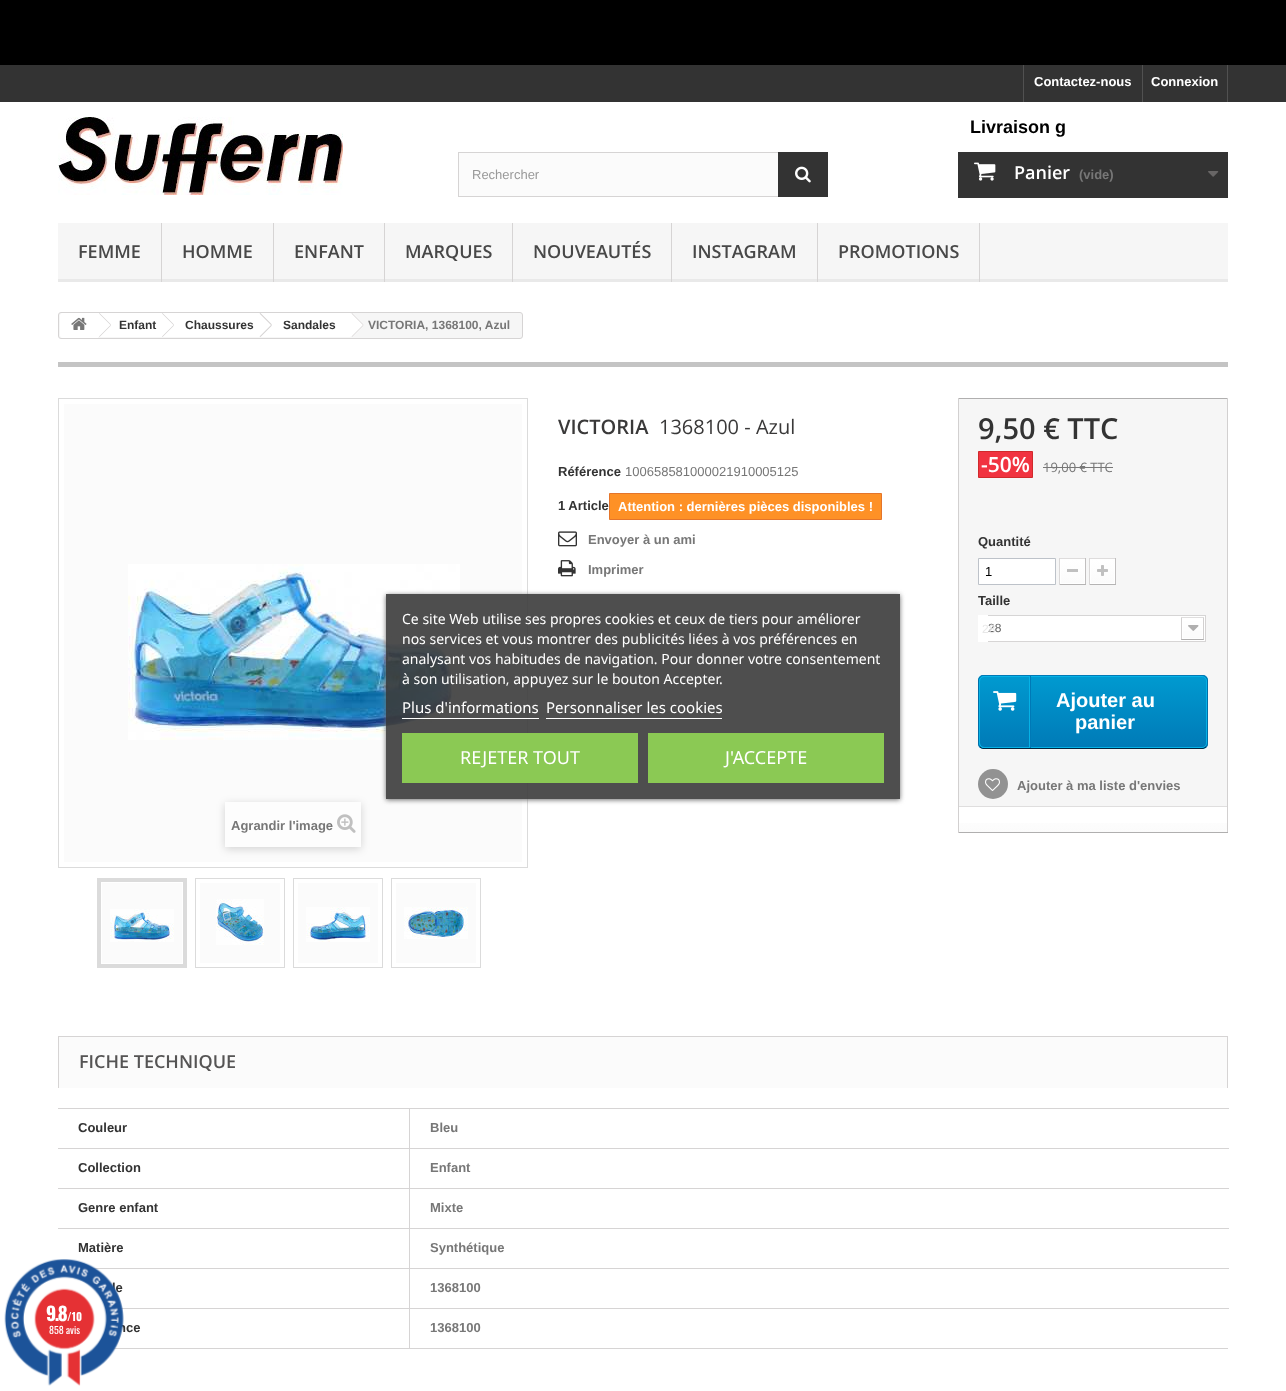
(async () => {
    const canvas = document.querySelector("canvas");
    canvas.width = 1286;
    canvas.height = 1391;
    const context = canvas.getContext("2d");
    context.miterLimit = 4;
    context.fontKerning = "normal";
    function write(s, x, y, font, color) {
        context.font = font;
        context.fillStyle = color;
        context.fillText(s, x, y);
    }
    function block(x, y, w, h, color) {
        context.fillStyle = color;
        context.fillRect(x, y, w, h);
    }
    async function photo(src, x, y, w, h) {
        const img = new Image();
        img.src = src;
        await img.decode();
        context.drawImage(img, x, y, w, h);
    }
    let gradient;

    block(0, 0, 1286, 1391, "rgb(255, 255, 255)");
    block(113, 1348, 1115, 1, "rgb(214, 212, 212)");
    block(93, 1268, 1136, 1, "rgb(214, 212, 212)");
    write("le", 112, 1292, "bold 13px Liberation Sans", "rgb(51, 51, 51)");
    block(120, 1308, 1109, 1, "rgb(214, 212, 212)");
    write("nce", 118, 1332, "bold 13px Liberation Sans", "rgb(51, 51, 51)");
    await photo("media/1.png", 4, 1259, 120, 127);
    context.letterSpacing = "-1.5px";
    write("9.8", 46, 1321, "bold 19px Oswald", "rgb(255, 255, 255)");
    context.letterSpacing = "0px";
    write("/10", 67, 1321, "bold 11px Oswald", "rgb(255, 255, 255)");
    write("858 avis", 49, 1334, "10px Oswald", "rgb(255, 255, 255)");
    block(0, 0, 1286, 65, "rgb(0, 0, 0)");
    block(0, 65, 1286, 37, "rgb(51, 51, 51)");
    block(1023, 65, 1, 37, "rgb(81, 81, 81)");
    write("Contactez-nous", 1034, 86, "bold 13px Liberation Sans", "rgb(255, 255, 255)");
    block(1227, 65, 1, 37, "rgb(81, 81, 81)");
    block(1142, 65, 1, 37, "rgb(81, 81, 81)");
    write("Connexion", 1151, 86, "bold 13px Liberation Sans", "rgb(255, 255, 255)");
    await photo("media/2.png", 58, 117, 285, 78);
    write("Livraison g", 970, 133, "bold 18px Liberation Sans", "rgb(0, 0, 0)");
    block(459, 153, 319, 43, "rgb(251, 251, 251)");
    context.strokeStyle = "rgb(214, 212, 212)";
    context.strokeRect(458.5, 152.5, 369, 44);
    write("Rechercher", 472, 179, "13px Liberation Sans", "rgb(153, 153, 153)");
    block(778, 152, 50, 45, "rgb(51, 51, 51)");
    await photo("media/3.png", 795, 166, 16, 17);
    block(958, 152, 270, 46, "rgb(51, 51, 51)");
    await photo("media/4.png", 974, 162, 22, 19);
    write("Panier", 1014, 179, "600 18px Open Sans", "rgb(255, 255, 255)");
    write("(vide)", 1079, 179, "bold 13px Liberation Sans", "rgb(119, 119, 119)");
    await photo("media/5.png", 1208, 171, 11, 6);
    block(58, 223, 1170, 56, "rgb(246, 246, 246)");
    block(58, 279, 1170, 3, "rgb(233, 233, 233)");
    block(161, 223, 1, 59, "rgb(214, 212, 212)");
    write("FEMME", 78, 258, "600 18px Open Sans", "rgb(72, 72, 72)");
    block(273, 223, 1, 59, "rgb(214, 212, 212)");
    write("HOMME", 182, 258, "600 18px Open Sans", "rgb(72, 72, 72)");
    block(384, 223, 1, 59, "rgb(214, 212, 212)");
    write("ENFANT", 294, 258, "600 18px Open Sans", "rgb(72, 72, 72)");
    block(512, 223, 1, 59, "rgb(214, 212, 212)");
    write("MARQUES", 405, 258, "600 18px Open Sans", "rgb(72, 72, 72)");
    block(671, 223, 1, 59, "rgb(214, 212, 212)");
    write("NOUVEAUTÉS", 533, 258, "600 18px Open Sans", "rgb(72, 72, 72)");
    block(817, 223, 1, 59, "rgb(214, 212, 212)");
    write("INSTAGRAM", 692, 258, "600 18px Open Sans", "rgb(72, 72, 72)");
    block(979, 223, 1, 59, "rgb(214, 212, 212)");
    write("PROMOTIONS", 838, 258, "600 18px Open Sans", "rgb(72, 72, 72)");
    context.fillStyle = "rgb(246, 246, 246)";
    context.beginPath();
    context.roundRect(58.5, 312.5, 464, 26, 2.5);
    context.fill();
    context.stroke();
    context.fillStyle = "rgb(255, 255, 255)";
    context.beginPath();
    context.roundRect(60, 313, 38, 25, [3, 0, 0, 3]);
    context.fill();
    await photo("media/6.png", 71, 317, 16, 13);
    block(98, 313, 65, 24, "rgb(255, 255, 255)");
    context.fillStyle = "rgb(214, 212, 212)";
    context.beginPath();
    context.moveTo(99.5, 313);
    context.lineTo(111, 324.5);
    context.lineTo(110.5, 325);
    context.lineTo(99, 313.5);
    context.closePath();
    context.moveTo(110.5, 325);
    context.lineTo(111, 325.5);
    context.lineTo(99.5, 337);
    context.lineTo(99, 336.5);
    context.closePath();
    context.fill();
    write("Enfant", 119, 329, "bold 12px Liberation Sans", "rgb(51, 51, 51)");
    context.fillStyle = "rgb(255, 255, 255)";
    context.beginPath();
    context.moveTo(173.5, 313.5);
    context.lineTo(183.5, 323.5);
    context.bezierCurveTo(184, 324.5, 184, 325.5, 183.5, 326.5);
    context.lineTo(173.5, 336.5);
    context.bezierCurveTo(172.5, 337, 171.5, 337, 170.5, 336.5);
    context.lineTo(160.5, 326.5);
    context.bezierCurveTo(160, 325.5, 160, 324.5, 160.5, 323.5);
    context.lineTo(170.5, 313.5);
    context.bezierCurveTo(171.5, 313, 172.5, 313, 173.5, 313.5);
    context.closePath();
    context.fill();
    block(163, 313, 98, 24, "rgb(255, 255, 255)");
    context.fillStyle = "rgb(214, 212, 212)";
    context.beginPath();
    context.moveTo(162.5, 313);
    context.lineTo(174, 324.5);
    context.lineTo(173.5, 325);
    context.lineTo(162, 313.5);
    context.closePath();
    context.moveTo(173.5, 325);
    context.lineTo(174, 325.5);
    context.lineTo(162.5, 337);
    context.lineTo(162, 336.5);
    context.closePath();
    context.fill();
    write("Chaussures", 185, 329, "bold 12px Liberation Sans", "rgb(51, 51, 51)");
    context.fillStyle = "rgb(255, 255, 255)";
    context.beginPath();
    context.moveTo(271, 313.5);
    context.lineTo(281, 323.5);
    context.bezierCurveTo(282, 324.5, 282, 325.5, 281, 326.5);
    context.lineTo(271, 336.5);
    context.bezierCurveTo(270.5, 337, 269, 337, 268.5, 336.5);
    context.lineTo(258.5, 326.5);
    context.bezierCurveTo(257.5, 325.5, 257.5, 324.5, 258.5, 323.5);
    context.lineTo(268.5, 313.5);
    context.bezierCurveTo(269, 313, 270.5, 313, 271, 313.5);
    context.closePath();
    context.fill();
    block(261, 313, 89, 24, "rgb(255, 255, 255)");
    context.fillStyle = "rgb(214, 212, 212)";
    context.beginPath();
    context.moveTo(260.5, 313);
    context.lineTo(272, 324.5);
    context.lineTo(271, 325);
    context.lineTo(259.5, 313.5);
    context.closePath();
    context.moveTo(271, 325);
    context.lineTo(272, 325.5);
    context.lineTo(260.5, 337);
    context.lineTo(259.5, 336.5);
    context.closePath();
    context.fill();
    write("Sandales", 283, 329, "bold 12px Liberation Sans", "rgb(51, 51, 51)");
    context.fillStyle = "rgb(255, 255, 255)";
    context.beginPath();
    context.moveTo(353, 313.5);
    context.lineTo(363, 323.5);
    context.bezierCurveTo(363.5, 324.5, 363.5, 325.5, 363, 326.5);
    context.lineTo(353, 336.5);
    context.bezierCurveTo(352, 337, 351, 337, 350, 336.5);
    context.lineTo(340, 326.5);
    context.bezierCurveTo(339.5, 325.5, 339.5, 324.5, 340, 323.5);
    context.lineTo(350, 313.5);
    context.bezierCurveTo(351, 313, 352, 313, 353, 313.5);
    context.closePath();
    context.fill();
    context.fillStyle = "rgb(214, 212, 212)";
    context.beginPath();
    context.moveTo(352, 313);
    context.lineTo(363.5, 324.5);
    context.lineTo(363, 325);
    context.lineTo(351.5, 313.5);
    context.closePath();
    context.moveTo(363, 325);
    context.lineTo(363.5, 325.5);
    context.lineTo(352, 337);
    context.lineTo(351.5, 336.5);
    context.closePath();
    context.fill();
    write("VICTORIA, 1368100, Azul", 368, 329, "bold 12px Liberation Sans", "rgb(119, 119, 119)");
    block(58, 362, 1170, 5, "rgb(196, 196, 196)");
    write("VICTORIA", 558, 434, "600 20px Open Sans", "rgb(58, 57, 57)");
    write("1368100 - Azul", 659, 434, "20px Open Sans", "rgb(58, 57, 57)");
    write("Référence", 558, 476, "bold 13px Liberation Sans", "rgb(51, 51, 51)");
    write("100658581000021910005125", 625, 476, "13px Liberation Sans", "rgb(119, 119, 119)");
    write("1 Article", 558, 510, "bold 13px Liberation Sans", "rgb(51, 51, 51)");
    context.fillStyle = "rgb(254, 145, 38)";
    context.beginPath();
    context.rect(609.5, 493.5, 272, 26);
    context.fill();
    context.strokeStyle = "rgb(228, 117, 43)";
    context.stroke();
    write("Attention : dernières pièces disponibles !", 618, 511, "bold 13px Liberation Sans", "rgb(255, 255, 255)");
    await photo("media/7.png", 558, 531, 19, 16);
    write("Envoyer à un ami", 588, 544, "bold 13px Liberation Sans", "rgb(119, 119, 119)");
    await photo("media/8.png", 558, 560, 18, 17);
    write("Imprimer", 588, 574, "bold 13px Liberation Sans", "rgb(119, 119, 119)");
    block(959, 399, 268, 407, "rgb(246, 246, 246)");
    block(958, 398, 270, 1, "rgb(176, 175, 175)");
    block(1227, 398, 1, 435, "rgb(210, 208, 208)");
    block(958, 832, 270, 1, "rgb(176, 175, 175)");
    block(958, 398, 1, 435, "rgb(210, 208, 208)");
    write("9,50 € TTC", 978, 439, "600 29px Open Sans", "rgb(51, 51, 51)");
    context.fillStyle = "rgb(241, 51, 64)";
    context.beginPath();
    context.rect(978.5, 451.5, 54, 26);
    context.fill();
    context.strokeStyle = "rgb(208, 42, 44)";
    context.stroke();
    write("-50%", 981, 472, "600 21px Open Sans", "rgb(255, 255, 255)");
    write("19,00 € TTC", 1043, 472, "13px Open Sans", "rgb(119, 119, 119)");
    block(1043, 467, 70, 1, "rgb(119, 119, 119)");
    write("Quantité", 978, 546, "bold 13px Liberation Sans", "rgb(51, 51, 51)");
    context.fillStyle = "rgb(255, 255, 255)";
    context.beginPath();
    context.rect(978.5, 558.5, 77, 26);
    context.fill();
    context.strokeStyle = "rgb(189, 194, 201)";
    context.stroke();
    write("1", 985, 576, "13px Liberation Sans", "rgb(0, 0, 0)");
    block(1059, 558, 27, 1, "rgb(222, 220, 220)");
    block(1085, 558, 1, 27, "rgb(193, 191, 191)");
    block(1059, 584, 27, 1, "rgb(181, 180, 180)");
    block(1059, 558, 1, 27, "rgb(218, 216, 216)");
    gradient = context.createLinearGradient(1073, 560, 1073, 583);
    gradient.addColorStop(0, "rgb(255, 255, 255)");
    gradient.addColorStop(1, "rgb(251, 251, 251)");
    context.fillStyle = gradient;
    context.fillRect(1061, 560, 23, 23);
    context.strokeStyle = "rgb(255, 255, 255)";
    context.strokeRect(1060.5, 559.5, 24, 24);
    block(1067, 569, 11, 3, "rgb(192, 192, 192)");
    block(1089, 558, 27, 1, "rgb(222, 220, 220)");
    block(1115, 558, 1, 27, "rgb(193, 191, 191)");
    block(1089, 584, 27, 1, "rgb(181, 180, 180)");
    block(1089, 558, 1, 27, "rgb(218, 216, 216)");
    gradient = context.createLinearGradient(1103, 560, 1103, 583);
    gradient.addColorStop(0, "rgb(255, 255, 255)");
    gradient.addColorStop(1, "rgb(251, 251, 251)");
    context.fillStyle = gradient;
    context.fillRect(1091, 560, 23, 23);
    context.strokeRect(1090.5, 559.5, 24, 24);
    await photo("media/9.png", 1097, 565, 11, 11);
    write("Taille", 978, 605, "bold 13px Liberation Sans", "rgb(51, 51, 51)");
    block(978, 615, 10, 27, "rgb(255, 255, 255)");
    await photo("media/10.png", 988, 615, 218, 27);
    write("28", 988, 632, "12px Liberation Sans", "rgb(102, 102, 102)");
    write("28", 982, 633, "12px Liberation Sans", "rgb(231, 231, 231)");
    context.save();
    context.beginPath();
    context.roundRect(978, 675, 230, 74, 5);
    context.clip();
    gradient = context.createLinearGradient(1093, 604, 1093, 676);
    gradient.addColorStop(0, "rgb(0, 154, 208)");
    gradient.addColorStop(1, "rgb(0, 122, 183)");
    context.fillStyle = gradient;
    context.fillRect(978, 675, 230, 1);
    gradient = context.createLinearGradient(1093, 676, 1093, 748);
    gradient.addColorStop(0, "rgb(0, 154, 208)");
    gradient.addColorStop(1, "rgb(0, 122, 183)");
    context.fillStyle = gradient;
    context.fillRect(978, 676, 230, 72);
    gradient = context.createLinearGradient(1093, 748, 1093, 820);
    gradient.addColorStop(0, "rgb(0, 154, 208)");
    gradient.addColorStop(1, "rgb(0, 122, 183)");
    context.fillStyle = gradient;
    context.fillRect(978, 748, 230, 1);
    context.restore();
    context.beginPath();
    context.moveTo(980, 677);
    context.lineTo(982.5, 675.5);
    context.lineTo(1166.5, 675.5);
    context.lineTo(1203, 675.5);
    context.lineTo(1206, 677);
    context.strokeStyle = "rgb(0, 121, 182)";
    context.stroke();
    context.beginPath();
    context.moveTo(1206, 677);
    context.lineTo(1207.5, 679.5);
    context.lineTo(1207.5, 744.5);
    context.lineTo(1206, 747);
    context.strokeStyle = "rgb(0, 111, 168)";
    context.stroke();
    context.beginPath();
    context.moveTo(1206, 747);
    context.lineTo(1203, 748.5);
    context.lineTo(982.5, 748.5);
    context.lineTo(980, 747);
    context.strokeStyle = "rgb(1, 39, 64)";
    context.stroke();
    context.beginPath();
    context.moveTo(980, 747);
    context.lineTo(978.5, 744.5);
    context.lineTo(978.5, 679.5);
    context.lineTo(980, 677);
    context.strokeStyle = "rgb(0, 111, 168)";
    context.stroke();
    context.beginPath();
    context.roundRect(979.5, 676.5, 227, 71, 4.5);
    context.strokeStyle = "rgb(6, 178, 230)";
    context.stroke();
    context.beginPath();
    context.roundRect(979.5, 676.5, 50, 71, [4.5, 0, 0, 4.5]);
    context.stroke();
    await photo("media/11.png", 993, 691, 24, 20);
    block(1030, 676, 1, 72, "rgb(0, 121, 182)");
    write("Ajouter au", 1056, 707, "bold 20px Liberation Sans", "rgb(255, 255, 255)");
    write("panier", 1075, 729, "bold 20px Liberation Sans", "rgb(255, 255, 255)");
    context.fillStyle = "rgb(146, 146, 146)";
    context.beginPath();
    context.arc(993, 784, 15, 0, Math.PI * 2);
    context.fill();
    await photo("media/12.png", 985, 778, 15, 13);
    write("Ajouter à ma liste d'envies", 1017, 790, "bold 13px Liberation Sans", "rgb(119, 119, 119)");
    gradient = context.createLinearGradient(1093, 807, 1093, 832);
    gradient.addColorStop(0, "rgb(255, 255, 255)");
    gradient.addColorStop(1, "rgb(251, 251, 251)");
    context.fillStyle = gradient;
    context.fillRect(959, 823, 268, 9);
    block(959, 806, 268, 1, "rgb(223, 222, 222)");
    context.strokeStyle = "rgb(219, 219, 219)";
    context.strokeRect(58.5, 398.5, 469, 469);
    block(64, 404, 458, 458, "rgb(251, 251, 251)");
    await photo("media/13.png", 128, 564, 332, 176);
    context.fillStyle = "rgba(0, 0, 0, 0.16)";
    context.filter = "blur(4px)";
    context.beginPath();
    context.rect(225, 804, 136, 45);
    context.fill();
    context.filter = "none";
    block(225, 802, 136, 45, "rgb(253, 253, 253)");
    write("Agrandir l'image", 231, 830, "bold 13px Liberation Sans", "rgb(119, 119, 119)");
    await photo("media/14.png", 337, 814, 19, 19);
    context.strokeRect(97.5, 878.5, 89, 89);
    block(102, 883, 80, 80, "rgb(251, 251, 251)");
    context.lineWidth = 3;
    context.strokeRect(99.5, 880.5, 85, 85);
    await photo("media/15.png", 110, 909, 64, 33);
    context.lineWidth = 1;
    context.strokeRect(195.5, 878.5, 89, 89);
    block(200, 883, 80, 80, "rgb(251, 251, 251)");
    await photo("media/16.png", 216, 899, 48, 46);
    context.strokeRect(293.5, 878.5, 89, 89);
    block(298, 883, 80, 80, "rgb(251, 251, 251)");
    await photo("media/17.png", 306, 907, 64, 35);
    context.strokeRect(391.5, 878.5, 89, 89);
    block(396, 883, 80, 80, "rgb(251, 251, 251)");
    await photo("media/18.png", 404, 907, 64, 32);
    block(59, 1037, 1168, 51, "rgb(251, 251, 251)");
    block(58, 1036, 1170, 1, "rgb(214, 212, 212)");
    block(1227, 1036, 1, 52, "rgb(214, 212, 212)");
    block(58, 1036, 1, 52, "rgb(214, 212, 212)");
    write("FICHE TECHNIQUE", 79, 1068, "600 18px Open Sans", "rgb(85, 84, 84)");
    block(58, 1108, 1171, 1, "rgb(214, 212, 212)");
    write("Couleur", 78, 1132, "bold 13px Liberation Sans", "rgb(51, 51, 51)");
    write("Bleu", 430, 1132, "bold 13px Liberation Sans", "rgb(119, 119, 119)");
    block(58, 1148, 1171, 1, "rgb(214, 212, 212)");
    write("Collection", 78, 1172, "bold 13px Liberation Sans", "rgb(51, 51, 51)");
    write("Enfant", 430, 1172, "bold 13px Liberation Sans", "rgb(119, 119, 119)");
    block(58, 1188, 1171, 1, "rgb(214, 212, 212)");
    write("Genre enfant", 78, 1212, "bold 13px Liberation Sans", "rgb(51, 51, 51)");
    write("Mixte", 430, 1212, "bold 13px Liberation Sans", "rgb(119, 119, 119)");
    block(58, 1228, 1171, 1, "rgb(214, 212, 212)");
    write("Matière", 78, 1252, "bold 13px Liberation Sans", "rgb(51, 51, 51)");
    write("Synthétique", 430, 1252, "bold 13px Liberation Sans", "rgb(119, 119, 119)");
    write("1368100", 430, 1292, "bold 13px Liberation Sans", "rgb(119, 119, 119)");
    block(409, 1108, 1, 241, "rgb(214, 212, 212)");
    write("1368100", 430, 1332, "bold 13px Liberation Sans", "rgb(119, 119, 119)");
    context.save();
    context.beginPath();
    context.moveTo(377, 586);
    context.lineTo(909, 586);
    context.lineTo(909, 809);
    context.lineTo(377, 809);
    context.closePath();
    context.moveTo(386, 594);
    context.lineTo(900, 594);
    context.lineTo(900, 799);
    context.lineTo(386, 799);
    context.closePath();
    context.clip("evenodd");
    context.fillStyle = "rgb(112, 112, 112)";
    context.filter = "blur(2.5px)";
    context.beginPath();
    context.rect(386, 595, 514, 205);
    context.fill();
    context.filter = "none";
    context.restore();
    block(386, 594, 514, 205, "rgba(59, 59, 59, 0.9)");
    write("Ce site Web utilise ses propres cookies et ceux de tiers pour améliorer", 402, 624, "14px Noto Sans", "rgb(255, 255, 255)");
    write("nos services et vous montrer des publicités liées à vos préférences en", 402, 644, "14px Noto Sans", "rgb(255, 255, 255)");
    write("analysant vos habitudes de navigation. Pour donner votre consentement", 402, 664, "14px Noto Sans", "rgb(255, 255, 255)");
    write("à son utilisation, appuyez sur le bouton Accepter.", 402, 684, "14px Noto Sans", "rgb(255, 255, 255)");
    write("Plus d'informations", 402, 713, "15px Noto Sans", "rgb(255, 255, 255)");
    block(402, 718, 137, 1, "rgb(255, 255, 255)");
    write("Personnaliser les cookies", 546, 713, "15px Noto Sans", "rgb(255, 255, 255)");
    block(546, 718, 176, 1, "rgb(255, 255, 255)");
    block(402, 733, 236, 50, "rgb(139, 201, 84)");
    write("REJETER TOUT", 460, 764, "18px Noto Sans", "rgb(255, 255, 255)");
    block(648, 733, 236, 50, "rgb(139, 201, 84)");
    write("J'ACCEPTE", 725, 764, "18px Noto Sans", "rgb(255, 255, 255)");
})();
